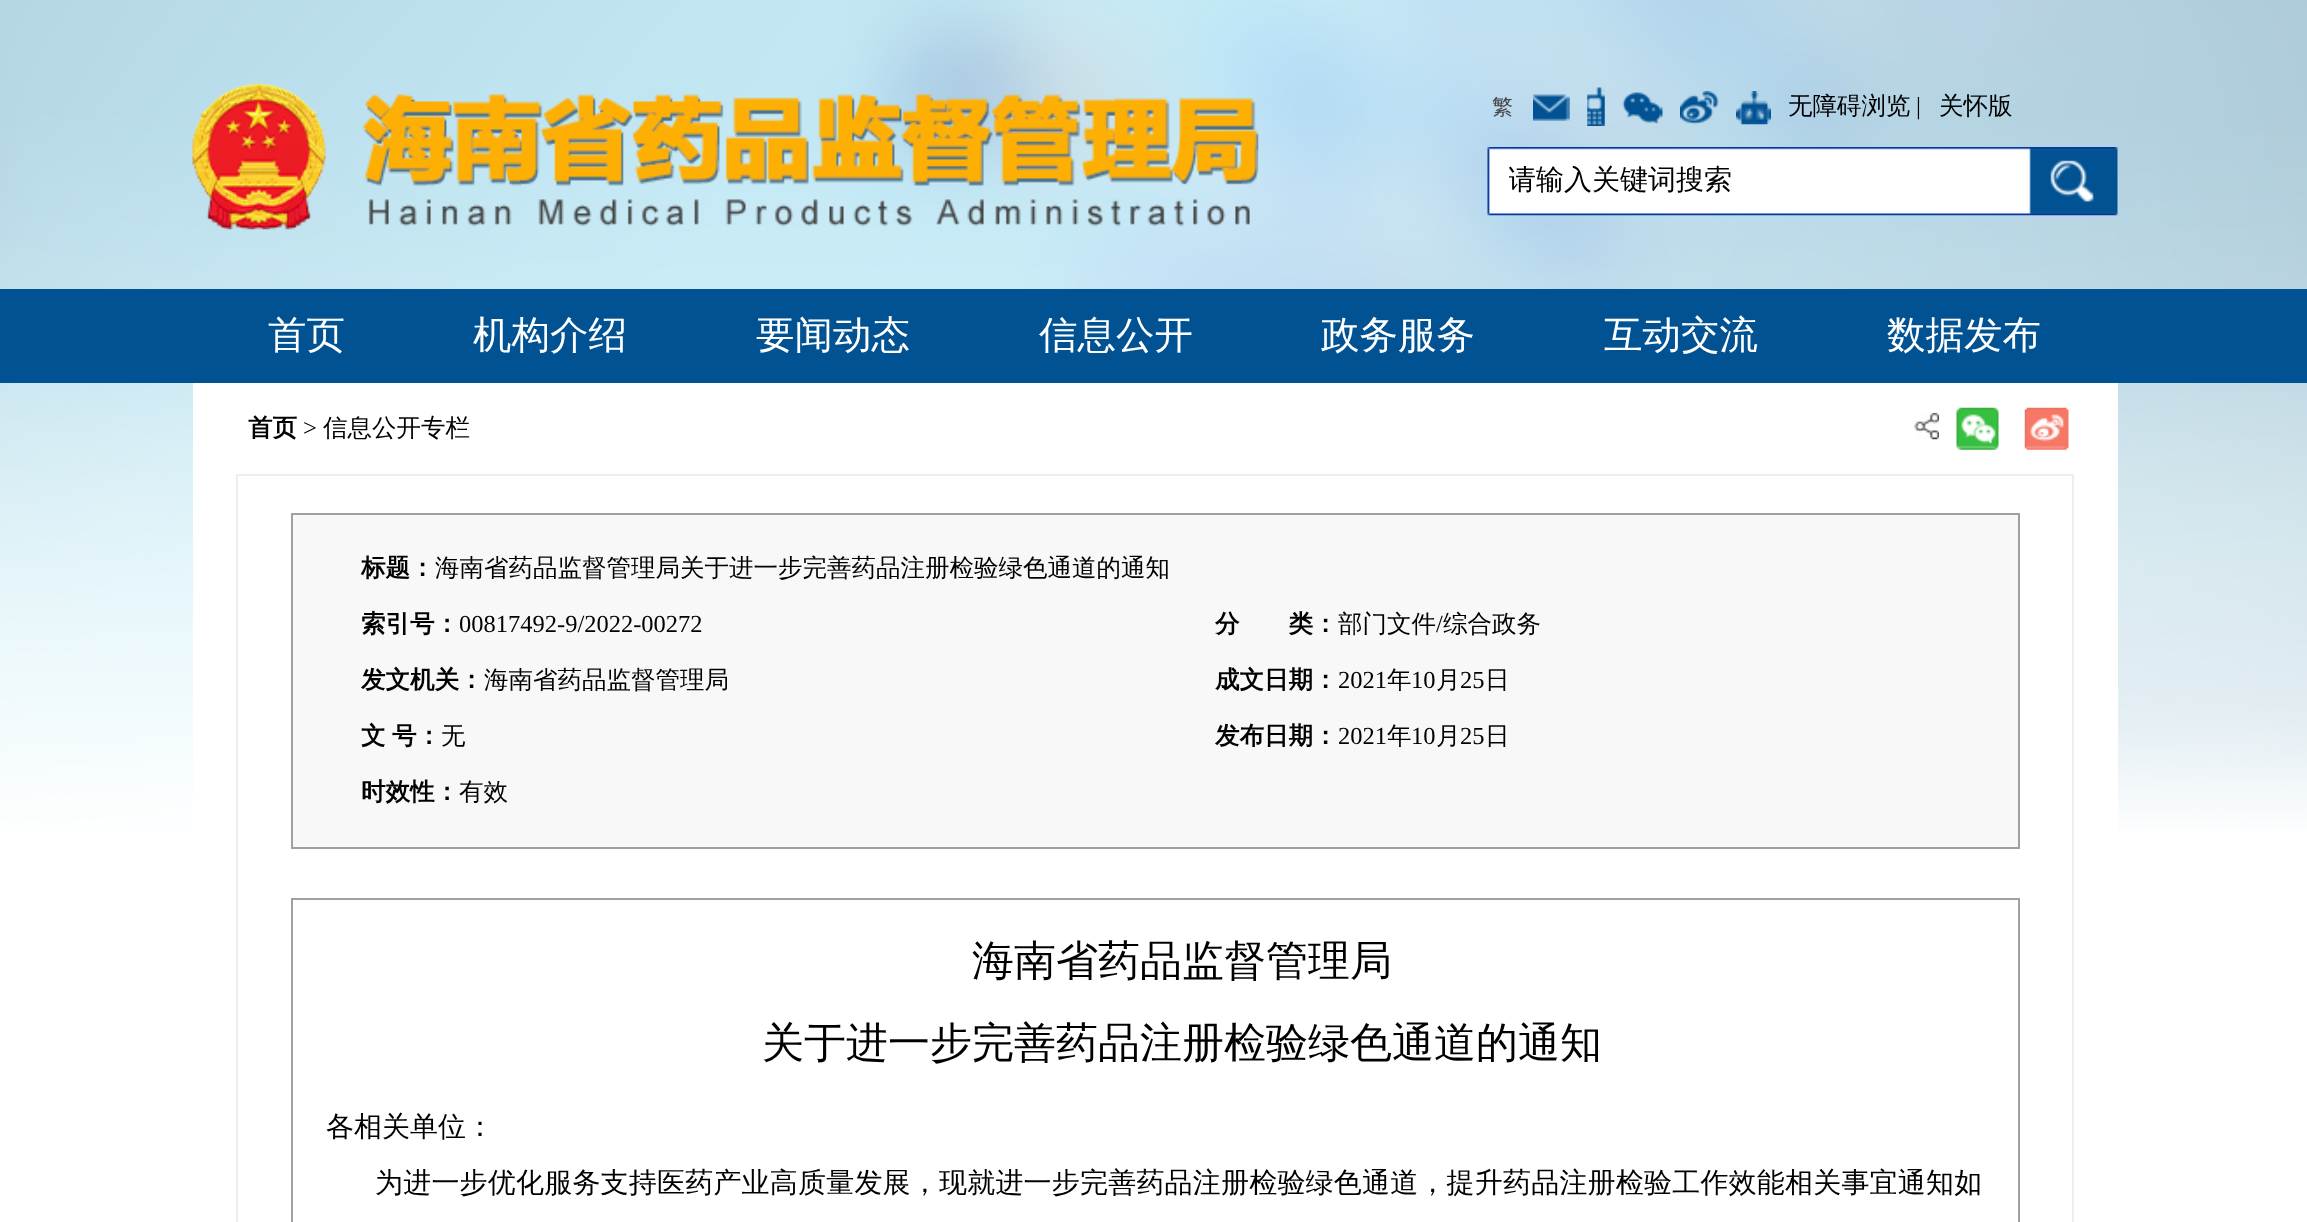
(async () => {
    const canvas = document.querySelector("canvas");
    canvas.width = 2307;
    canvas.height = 1222;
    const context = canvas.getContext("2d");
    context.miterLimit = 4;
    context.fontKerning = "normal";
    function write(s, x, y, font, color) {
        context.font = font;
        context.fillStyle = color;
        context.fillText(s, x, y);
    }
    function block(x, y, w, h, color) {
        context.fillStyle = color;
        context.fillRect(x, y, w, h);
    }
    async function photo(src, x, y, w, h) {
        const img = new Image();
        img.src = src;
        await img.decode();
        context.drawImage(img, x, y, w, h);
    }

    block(0, 0, 2307, 1222, "rgb(255, 255, 255)");
    await photo("media/1.png", 0, 0, 2307, 829);
    await photo("media/2.png", 192, 84, 1067, 146);
    write("繁", 1492, 114, "500 21px WenQuanYi Zen Hei", "rgb(67, 67, 67)");
    await photo("media/3.png", 1533, 94, 37, 27);
    await photo("media/4.png", 1587, 87, 18, 39);
    await photo("media/5.png", 1622, 91, 41, 34);
    await photo("media/6.png", 1680, 91, 39, 34);
    await photo("media/7.png", 1736, 91, 35, 34);
    write("无障碍浏览", 1788, 114, "500 24.5px WenQuanYi Zen Hei", "rgb(0, 0, 0)");
    write("|", 1916, 114, "24.5px Liberation Serif", "rgb(0, 0, 0)");
    write("关怀版", 1939, 114, "500 24.5px WenQuanYi Zen Hei", "rgb(0, 0, 0)");
    await photo("media/8.png", 1487, 147, 631, 69);
    context.save();
    context.beginPath();
    context.rect(1509, 163, 500, 37);
    context.clip();
    write("请输入关键词搜索", 1508, 189, "500 28px WenQuanYi Zen Hei", "rgb(0, 0, 0)");
    context.restore();
    block(0, 289, 2307, 94, "rgb(1, 82, 147)");
    write("首页", 268, 348, "500 38.5px WenQuanYi Zen Hei", "rgb(255, 255, 255)");
    write("机构介绍", 473, 348, "500 38.5px WenQuanYi Zen Hei", "rgb(255, 255, 255)");
    write("要闻动态", 756, 348, "500 38.5px WenQuanYi Zen Hei", "rgb(255, 255, 255)");
    write("信息公开", 1039, 348, "500 38.5px WenQuanYi Zen Hei", "rgb(255, 255, 255)");
    write("政务服务", 1321, 348, "500 38.5px WenQuanYi Zen Hei", "rgb(255, 255, 255)");
    write("互动交流", 1604, 348, "500 38.5px WenQuanYi Zen Hei", "rgb(255, 255, 255)");
    write("数据发布", 1887, 348, "500 38.5px WenQuanYi Zen Hei", "rgb(255, 255, 255)");
    block(193, 383, 1925, 446, "rgb(255, 255, 255)");
    write("首页", 248, 436, "bold 24.5px WenQuanYi Zen Hei", "rgb(0, 0, 0)");
    write(">", 303, 436, "24.5px Liberation Serif", "rgb(0, 0, 0)");
    write("信息公开专栏", 323, 436, "500 24.5px WenQuanYi Zen Hei", "rgb(0, 0, 0)");
    await photo("media/9.png", 1914, 413, 25, 27);
    await photo("media/10.png", 1956, 407, 43, 43);
    await photo("media/11.png", 2024, 407, 45, 43);
    context.strokeStyle = "rgb(238, 238, 238)";
    context.lineWidth = 2;
    context.strokeRect(237, 475, 1836, 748);
    context.fillStyle = "rgb(248, 248, 248)";
    context.beginPath();
    context.rect(292, 514, 1727, 334);
    context.fill();
    context.strokeStyle = "rgb(160, 160, 160)";
    context.stroke();
    write("标题：", 361, 576, "bold 24.5px WenQuanYi Zen Hei", "rgb(0, 0, 0)");
    write("海南省药品监督管理局关于进一步完善药品注册检验绿色通道的通知", 435, 576, "500 24.5px WenQuanYi Zen Hei", "rgb(0, 0, 0)");
    write("索引号：", 361, 632, "bold 24.5px WenQuanYi Zen Hei", "rgb(0, 0, 0)");
    write("00817492-9/2022-00272", 459, 632, "24.5px Liberation Serif", "rgb(0, 0, 0)");
    write("分　　类：", 1215, 632, "bold 24.5px WenQuanYi Zen Hei", "rgb(0, 0, 0)");
    write("部门文件", 1338, 632, "500 24.5px WenQuanYi Zen Hei", "rgb(0, 0, 0)");
    write("/", 1436, 632, "24.5px Liberation Serif", "rgb(0, 0, 0)");
    write("综合政务", 1443, 632, "500 24.5px WenQuanYi Zen Hei", "rgb(0, 0, 0)");
    write("发文机关：", 361, 688, "bold 24.5px WenQuanYi Zen Hei", "rgb(0, 0, 0)");
    write("海南省药品监督管理局", 484, 688, "500 24.5px WenQuanYi Zen Hei", "rgb(0, 0, 0)");
    write("成文日期：", 1215, 688, "bold 24.5px WenQuanYi Zen Hei", "rgb(0, 0, 0)");
    write("2021", 1338, 688, "24.5px Liberation Serif", "rgb(0, 0, 0)");
    write("年", 1387, 688, "500 24.5px WenQuanYi Zen Hei", "rgb(0, 0, 0)");
    write("10", 1411, 688, "24.5px Liberation Serif", "rgb(0, 0, 0)");
    write("月", 1436, 688, "500 24.5px WenQuanYi Zen Hei", "rgb(0, 0, 0)");
    write("25", 1460, 688, "24.5px Liberation Serif", "rgb(0, 0, 0)");
    write("日", 1485, 688, "500 24.5px WenQuanYi Zen Hei", "rgb(0, 0, 0)");
    write("文", 361, 744, "bold 24.5px WenQuanYi Zen Hei", "rgb(0, 0, 0)");
    write("号：", 392, 744, "bold 24.5px WenQuanYi Zen Hei", "rgb(0, 0, 0)");
    write("无", 441, 744, "500 24.5px WenQuanYi Zen Hei", "rgb(0, 0, 0)");
    write("发布日期：", 1215, 744, "bold 24.5px WenQuanYi Zen Hei", "rgb(0, 0, 0)");
    write("2021", 1338, 744, "24.5px Liberation Serif", "rgb(0, 0, 0)");
    write("年", 1387, 744, "500 24.5px WenQuanYi Zen Hei", "rgb(0, 0, 0)");
    write("10", 1411, 744, "24.5px Liberation Serif", "rgb(0, 0, 0)");
    write("月", 1436, 744, "500 24.5px WenQuanYi Zen Hei", "rgb(0, 0, 0)");
    write("25", 1460, 744, "24.5px Liberation Serif", "rgb(0, 0, 0)");
    write("日", 1485, 744, "500 24.5px WenQuanYi Zen Hei", "rgb(0, 0, 0)");
    write("时效性：", 361, 800, "bold 24.5px WenQuanYi Zen Hei", "rgb(0, 0, 0)");
    write("有效", 459, 800, "500 24.5px WenQuanYi Zen Hei", "rgb(0, 0, 0)");
    context.strokeRect(292, 899, 1727, 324);
    write("海南省药品监督管理局", 972, 975, "500 42px WenQuanYi Zen Hei", "rgb(0, 0, 0)");
    write("关于进一步完善药品注册检验绿色通道的通知", 762, 1057, "500 42px WenQuanYi Zen Hei", "rgb(0, 0, 0)");
    write("各相关单位：", 326, 1136, "500 28px WenQuanYi Zen Hei", "rgb(0, 0, 0)");
    context.letterSpacing = "0.2px";
    write("为进一步优化服务支持医药产业高质量发展，现就进一步完善药品注册检验绿色通道，提升药品注册检验工作效能相关事宜通知如", 375, 1192, "500 28px WenQuanYi Zen Hei", "rgb(0, 0, 0)");
})();
